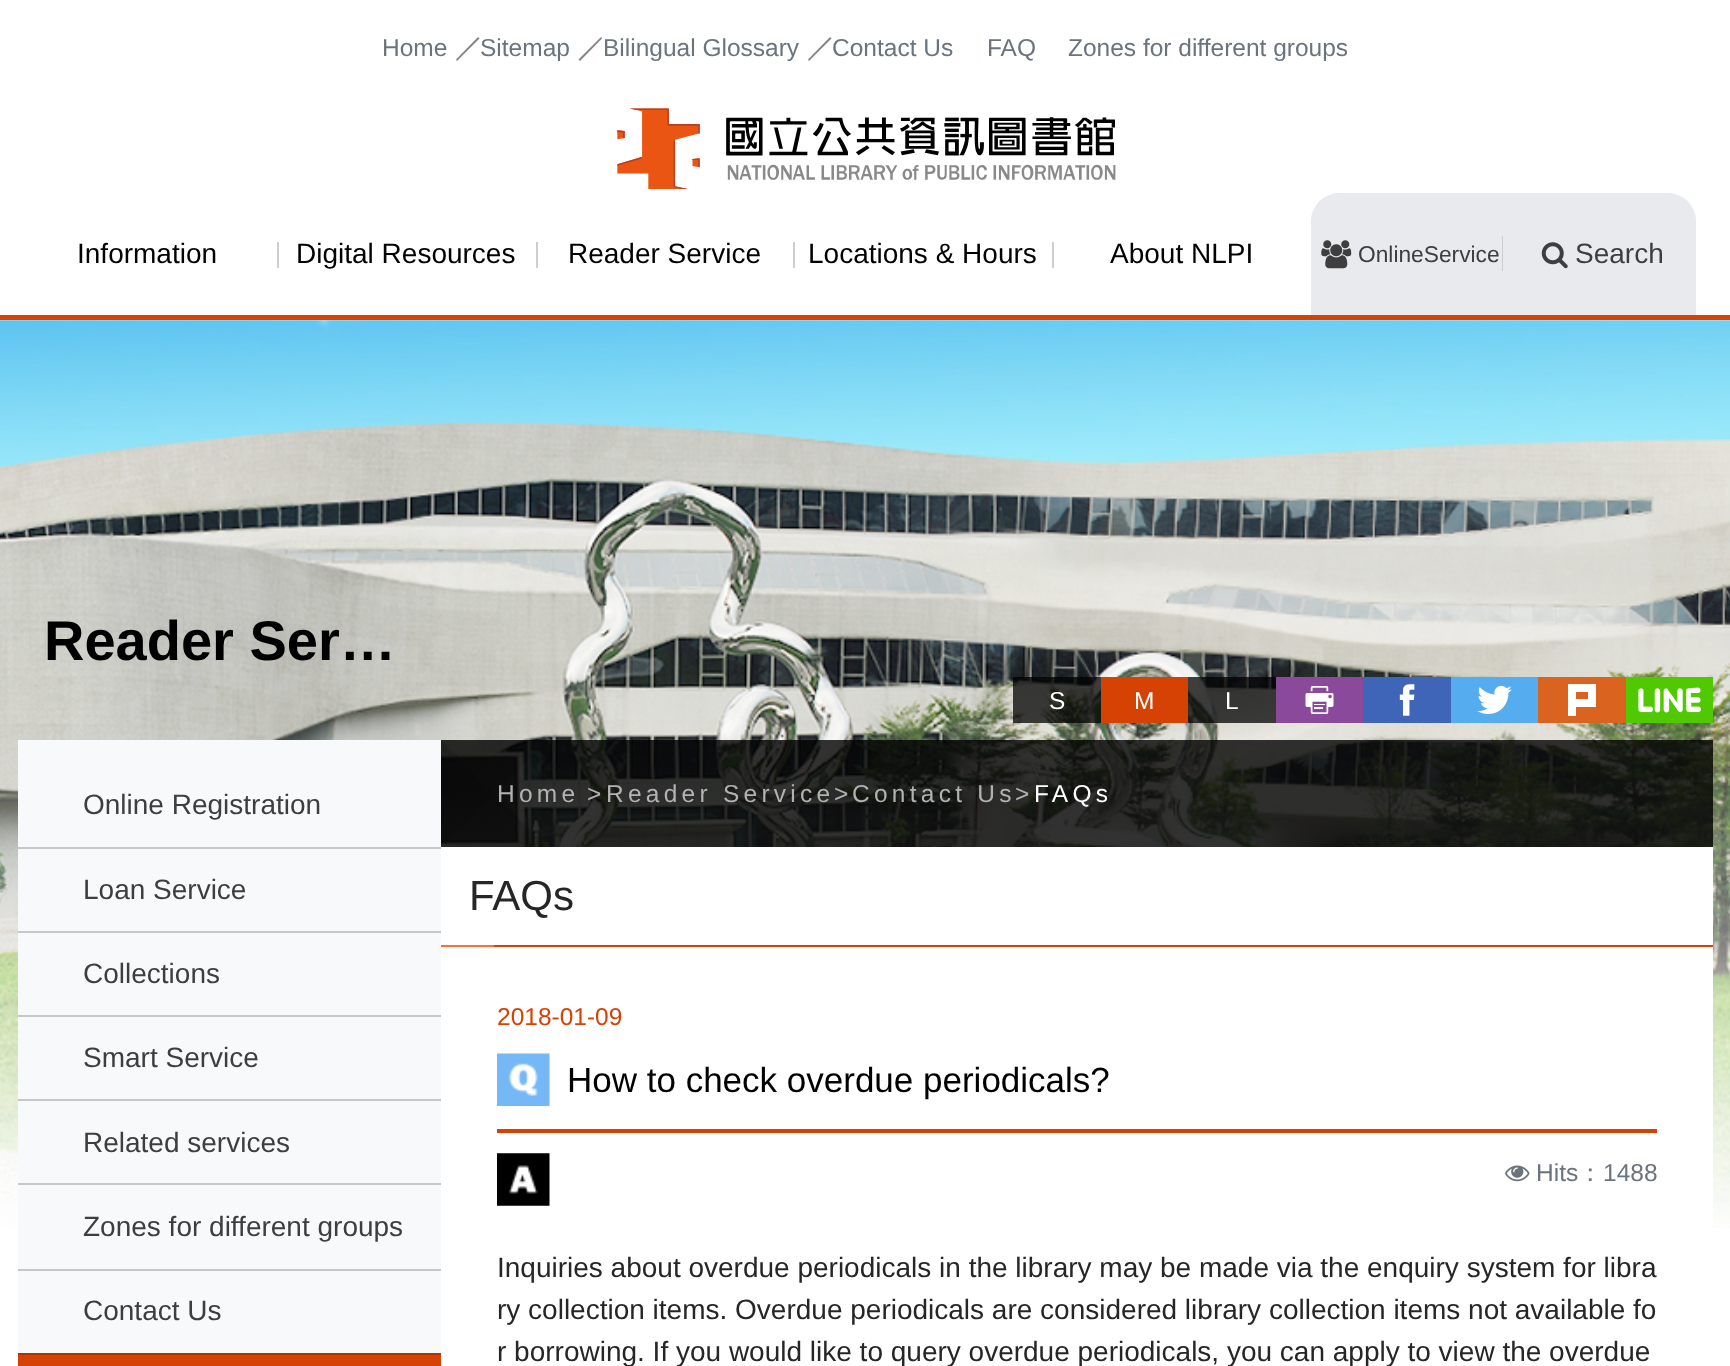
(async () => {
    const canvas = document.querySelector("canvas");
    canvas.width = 1730;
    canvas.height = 1366;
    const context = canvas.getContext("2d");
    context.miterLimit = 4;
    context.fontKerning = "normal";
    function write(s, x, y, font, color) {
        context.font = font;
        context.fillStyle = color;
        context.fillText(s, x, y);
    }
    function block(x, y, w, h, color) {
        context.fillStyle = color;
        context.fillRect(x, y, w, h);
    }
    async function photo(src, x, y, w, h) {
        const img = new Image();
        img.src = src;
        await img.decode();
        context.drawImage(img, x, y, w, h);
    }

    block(0, 0, 1730, 1366, "rgb(255, 255, 255)");
    write("Home", 382, 56, "24.5px Liberation Sans", "rgb(107, 116, 125)");
    context.fillStyle = "rgb(133, 133, 133)";
    context.beginPath();
    context.moveTo(478, 37);
    context.lineTo(479.5, 38.5);
    context.lineTo(457, 61);
    context.lineTo(456, 59.5);
    context.closePath();
    context.fill();
    write("Sitemap", 480, 56, "24.5px Liberation Sans", "rgb(107, 116, 125)");
    context.fillStyle = "rgb(133, 133, 133)";
    context.beginPath();
    context.moveTo(601, 37);
    context.lineTo(602, 38.5);
    context.lineTo(580, 61);
    context.lineTo(578.5, 59.5);
    context.closePath();
    context.fill();
    write("Bilingual Glossary", 603, 56, "24.5px Liberation Sans", "rgb(107, 116, 125)");
    context.fillStyle = "rgb(133, 133, 133)";
    context.beginPath();
    context.moveTo(830, 37);
    context.lineTo(831.5, 38.5);
    context.lineTo(809, 61);
    context.lineTo(808, 59.5);
    context.closePath();
    context.fill();
    write("Contact Us", 832, 56, "24.5px Liberation Sans", "rgb(107, 116, 125)");
    write("FAQ", 987, 56, "24.5px Liberation Sans", "rgb(107, 116, 125)");
    write("Zones for different groups", 1068, 56, "24.5px Liberation Sans", "rgb(107, 116, 125)");
    await photo("media/1.png", 617, 108, 499, 81);
    write("Information", 77, 263, "28px Liberation Sans", "rgb(0, 0, 0)");
    block(277, 242, 2, 26, "rgb(206, 206, 207)");
    write("Digital Resources", 296, 263, "28px Liberation Sans", "rgb(0, 0, 0)");
    block(536, 242, 2, 26, "rgb(206, 206, 207)");
    write("Reader Service", 568, 263, "28px Liberation Sans", "rgb(0, 0, 0)");
    block(793, 242, 2, 26, "rgb(206, 206, 207)");
    write("Locations & Hours", 808, 263, "28px Liberation Sans", "rgb(0, 0, 0)");
    block(1052, 242, 2, 26, "rgb(206, 206, 207)");
    write("About NLPI", 1110, 263, "28px Liberation Sans", "rgb(0, 0, 0)");
    context.fillStyle = "rgb(233, 234, 238)";
    context.beginPath();
    context.roundRect(1311, 193, 192, 122, [28, 0, 0, 0]);
    context.fill();
    await photo("media/2.png", 1321, 240, 31, 29);
    write("OnlineService", 1358, 262, "22.75px Liberation Sans", "rgb(62, 62, 62)");
    block(1502, 236, 1, 35, "rgb(206, 206, 207)");
    context.fillStyle = "rgb(233, 234, 238)";
    context.beginPath();
    context.roundRect(1503, 193, 193, 122, [0, 28, 0, 0]);
    context.fill();
    await photo("media/3.png", 1541, 242, 27, 27);
    write("Search", 1575, 263, "28px Liberation Sans", "rgb(62, 62, 62)");
    await photo("media/4.png", 0, 320, 1730, 908);
    block(0, 315, 1730, 5, "rgb(214, 66, 3)");
    write("Reader Ser…", 44, 660, "bold 56px Liberation Sans", "rgb(0, 0, 0)");
    block(18, 740, 423, 613, "rgb(248, 249, 250)");
    write("Online Registration", 83, 814, "28px Liberation Sans", "rgb(62, 62, 62)");
    block(18, 847, 423, 2, "rgb(198, 199, 200)");
    write("Loan Service", 83, 899, "28px Liberation Sans", "rgb(62, 62, 62)");
    block(18, 931, 423, 2, "rgb(198, 199, 200)");
    write("Collections", 83, 983, "28px Liberation Sans", "rgb(62, 62, 62)");
    block(18, 1015, 423, 2, "rgb(198, 199, 200)");
    write("Smart Service", 83, 1067, "28px Liberation Sans", "rgb(62, 62, 62)");
    block(18, 1099, 423, 2, "rgb(198, 199, 200)");
    write("Related services", 83, 1152, "28px Liberation Sans", "rgb(62, 62, 62)");
    block(18, 1183, 423, 2, "rgb(198, 199, 200)");
    write("Zones for different groups", 83, 1236, "28px Liberation Sans", "rgb(62, 62, 62)");
    block(18, 1269, 423, 2, "rgb(198, 199, 200)");
    write("Contact Us", 83, 1320, "28px Liberation Sans", "rgb(62, 62, 62)");
    block(18, 1355, 423, 11, "rgb(214, 66, 3)");
    block(18, 1353, 423, 2, "rgb(171, 53, 2)");
    block(1013, 677, 88, 46, "rgba(0, 0, 0, 0.75)");
    write("S", 1049, 709, "24.5px Liberation Sans", "rgb(255, 255, 255)");
    block(1101, 677, 87, 46, "rgb(214, 66, 3)");
    write("M", 1134, 709, "24.5px Liberation Sans", "rgb(255, 255, 255)");
    block(1188, 677, 88, 46, "rgba(0, 0, 0, 0.75)");
    write("L", 1225, 709, "24.5px Liberation Sans", "rgb(255, 255, 255)");
    block(1276, 677, 87, 46, "rgb(139, 73, 156)");
    await photo("media/5.png", 1305, 686, 29, 28);
    block(1363, 677, 88, 46, "rgb(62, 101, 183)");
    await photo("media/6.png", 1399, 684, 16, 32);
    block(1451, 677, 87, 46, "rgb(85, 172, 238)");
    await photo("media/7.png", 1477, 685, 35, 29);
    block(1538, 677, 88, 46, "rgb(219, 99, 32)");
    context.fillStyle = "rgb(255, 255, 255)";
    context.beginPath();
    context.moveTo(1588, 684);
    context.lineTo(1568, 684);
    context.lineTo(1568, 716);
    context.lineTo(1576, 716);
    context.lineTo(1576, 707);
    context.lineTo(1596, 707);
    context.lineTo(1596, 684);
    context.closePath();
    context.moveTo(1588, 699);
    context.lineTo(1576, 699);
    context.lineTo(1576, 692);
    context.lineTo(1588, 692);
    context.closePath();
    context.fill();
    block(1626, 677, 87, 46, "rgb(80, 201, 0)");
    await photo("media/8.png", 1638, 687, 63, 26);
    block(441, 740, 1272, 107, "rgba(0, 0, 0, 0.8)");
    await photo("media/9.png", 441, 740, 101, 107);
    context.letterSpacing = "4.25px";
    write("Home", 497, 802, "24.5px Liberation Sans", "rgb(178, 178, 178)");
    write(">", 587, 802, "24.5px Liberation Sans", "rgb(178, 178, 178)");
    write("Reader Service", 606, 802, "24.5px Liberation Sans", "rgb(178, 178, 178)");
    write(">", 834, 802, "24.5px Liberation Sans", "rgb(178, 178, 178)");
    write("Contact Us", 852, 802, "24.5px Liberation Sans", "rgb(178, 178, 178)");
    write(">", 1015, 802, "24.5px Liberation Sans", "rgb(178, 178, 178)");
    write("FAQs", 1034, 802, "24.5px Liberation Sans", "rgb(255, 255, 255)");
    block(441, 847, 1272, 381, "rgb(255, 255, 255)");
    block(494, 945, 1219, 2, "rgb(214, 66, 3)");
    context.letterSpacing = "0px";
    write("FAQs", 469, 910, "42px Liberation Sans", "rgb(38, 38, 38)");
    block(441, 945, 53, 2, "rgb(249, 114, 53)");
    block(497, 1129, 1160, 4, "rgb(214, 66, 3)");
    write("2018-01-09", 497, 1025, "24.5px Liberation Sans", "rgb(214, 66, 3)");
    await photo("media/10.png", 497, 1053, 53, 53);
    write("How to check overdue periodicals?", 567, 1092, "35px Liberation Sans", "rgb(0, 0, 0)");
    await photo("media/11.png", 497, 1153, 53, 53);
    await photo("media/12.png", 1505, 1165, 25, 17);
    write("Hits", 1536, 1181, "24.5px Liberation Sans", "rgb(107, 116, 125)");
    write("：", 1578, 1181, "500 24.5px WenQuanYi Zen Hei", "rgb(107, 116, 125)");
    write("1488", 1603, 1181, "24.5px Liberation Sans", "rgb(107, 116, 125)");
    write("Inquiries about overdue periodicals in the library may be made via the enquiry system for libra", 497, 1277, "28px Liberation Sans", "rgb(38, 38, 38)");
    write("ry collection items. Overdue periodicals are considered library collection items not available fo", 497, 1319, "28px Liberation Sans", "rgb(38, 38, 38)");
    write("r borrowing. If you would like to query overdue periodicals, you can apply to view the overdue", 497, 1361, "28px Liberation Sans", "rgb(38, 38, 38)");
})();
